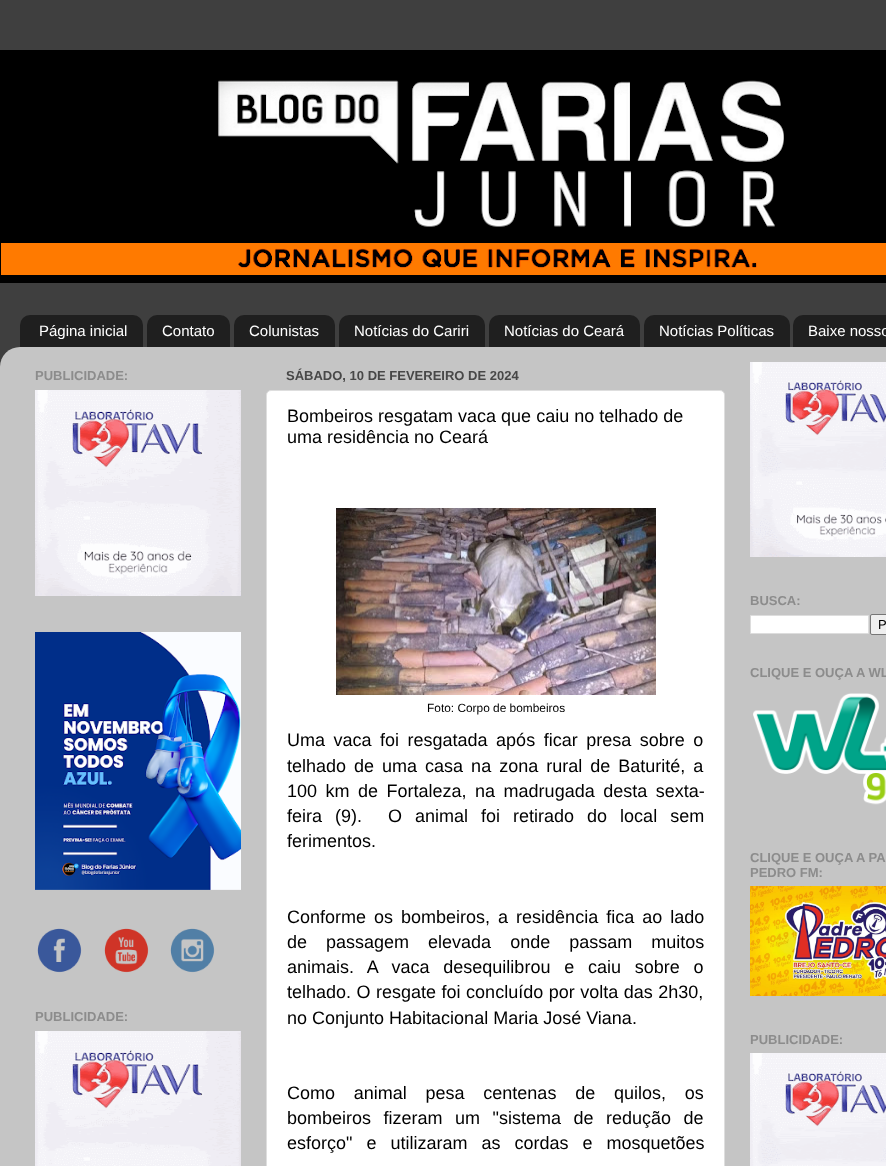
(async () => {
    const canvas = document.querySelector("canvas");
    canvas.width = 886;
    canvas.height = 1166;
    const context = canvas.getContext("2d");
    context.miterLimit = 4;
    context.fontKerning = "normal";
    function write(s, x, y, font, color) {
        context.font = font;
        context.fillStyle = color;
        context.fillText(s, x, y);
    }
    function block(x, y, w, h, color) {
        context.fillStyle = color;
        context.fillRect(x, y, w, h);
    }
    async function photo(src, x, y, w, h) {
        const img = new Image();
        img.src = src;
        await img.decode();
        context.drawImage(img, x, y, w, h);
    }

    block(0, 0, 886, 1166, "rgb(63, 63, 63)");
    await photo("media/1.png", 0, 50, 886, 233);
    await photo("media/2.png", 20, 315, 123, 32);
    write("Página inicial", 39, 336, "15px Liberation Sans", "rgb(255, 255, 255)");
    await photo("media/3.png", 147, 315, 83, 32);
    write("Contato", 162, 336, "15px Liberation Sans", "rgb(255, 255, 255)");
    await photo("media/4.png", 234, 315, 101, 32);
    write("Colunistas", 249, 336, "15px Liberation Sans", "rgb(255, 255, 255)");
    await photo("media/5.png", 339, 315, 146, 32);
    write("Notícias do Cariri", 354, 336, "15px Liberation Sans", "rgb(255, 255, 255)");
    await photo("media/6.png", 489, 315, 151, 32);
    write("Notícias do Ceará", 504, 336, "15px Liberation Sans", "rgb(255, 255, 255)");
    await photo("media/7.png", 644, 315, 146, 32);
    write("Notícias Políticas", 659, 336, "15px Liberation Sans", "rgb(255, 255, 255)");
    await photo("media/8.png", 793, 315, 93, 32);
    write("Baixe nosso", 808, 336, "15px Liberation Sans", "rgb(255, 255, 255)");
    await photo("media/9.png", 0, 347, 886, 819);
    write("PUBLICIDADE:", 35, 380, "bold 13px Liberation Sans", "rgb(140, 140, 140)");
    await photo("media/10.png", 35, 390, 206, 206);
    await photo("media/11.png", 35, 632, 206, 258);
    await photo("media/12.png", 37, 928, 45, 45);
    await photo("media/13.png", 104, 928, 45, 45);
    await photo("media/14.png", 170, 928, 45, 45);
    write("PUBLICIDADE:", 35, 1021, "bold 13px Liberation Sans", "rgb(140, 140, 140)");
    await photo("media/15.png", 35, 1031, 206, 135);
    write("SÁBADO, 10 DE FEVEREIRO DE 2024", 286, 380, "bold 13px Liberation Sans", "rgb(72, 72, 72)");
    context.fillStyle = "rgb(255, 255, 255)";
    context.beginPath();
    context.roundRect(266.5, 390.5, 458, 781, 4.5);
    context.fill();
    context.strokeStyle = "rgb(222, 222, 222)";
    context.stroke();
    write("Bombeiros resgatam vaca que caiu no telhado de", 287, 422, "18px Liberation Sans", "rgb(0, 0, 0)");
    write("uma residência no Ceará", 287, 443, "18px Liberation Sans", "rgb(0, 0, 0)");
    await photo("media/16.png", 336, 508, 320, 187);
    write("Foto: Corpo de bombeiros", 427, 712, "11.9px Liberation Sans", "rgb(0, 0, 0)");
    context.wordSpacing = "3.5px";
    write("Uma vaca foi resgatada após ficar presa sobre o", 287, 746, "18px Liberation Sans", "rgb(0, 0, 0)");
    context.wordSpacing = "3px";
    write("telhado de uma casa na zona rural de Baturité, a", 287, 772, "18px Liberation Sans", "rgb(0, 0, 0)");
    context.wordSpacing = "3.5px";
    write("100 km de Fortaleza, na madrugada desta sexta-", 287, 797, "18px Liberation Sans", "rgb(0, 0, 0)");
    context.wordSpacing = "8px";
    write("feira (9).  O animal foi retirado do local sem", 287, 822, "18px Liberation Sans", "rgb(0, 0, 0)");
    context.wordSpacing = "0px";
    write("ferimentos.", 287, 847, "18px Liberation Sans", "rgb(0, 0, 0)");
    context.wordSpacing = "3px";
    write("Conforme os bombeiros, a residência fica ao lado", 287, 923, "18px Liberation Sans", "rgb(0, 0, 0)");
    context.wordSpacing = "14px";
    write("de passagem elevada onde passam muitos", 287, 948, "18px Liberation Sans", "rgb(0, 0, 0)");
    context.wordSpacing = "8.75px";
    write("animais. A vaca desequilibrou e caiu sobre o", 287, 973, "18px Liberation Sans", "rgb(0, 0, 0)");
    context.wordSpacing = "0.5px";
    write("telhado. O resgate foi concluído por volta das 2h30,", 287, 998, "18px Liberation Sans", "rgb(0, 0, 0)");
    context.wordSpacing = "0px";
    write("no Conjunto Habitacional Maria José Viana.", 287, 1024, "18px Liberation Sans", "rgb(0, 0, 0)");
    context.wordSpacing = "13.75px";
    write("Como animal pesa centenas de quilos, os", 287, 1099, "18px Liberation Sans", "rgb(0, 0, 0)");
    context.wordSpacing = "7.5px";
    write("bombeiros fizeram um \"sistema de redução de", 287, 1124, "18px Liberation Sans", "rgb(0, 0, 0)");
    context.wordSpacing = "9px";
    write("esforço\" e utilizaram as cordas e mosquetões", 287, 1149, "18px Liberation Sans", "rgb(0, 0, 0)");
    await photo("media/17.png", 750, 362, 136, 195);
    context.wordSpacing = "0px";
    write("BUSCA:", 750, 605, "bold 13px Liberation Sans", "rgb(140, 140, 140)");
    context.fillStyle = "rgb(255, 255, 255)";
    context.beginPath();
    context.rect(750.5, 615.5, 118, 18);
    context.fill();
    context.strokeStyle = "rgb(221, 221, 221)";
    context.stroke();
    context.fillStyle = "rgb(239, 239, 239)";
    context.beginPath();
    context.roundRect(870.5, 614.5, 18, 20, 1.5);
    context.fill();
    context.strokeStyle = "rgb(118, 118, 118)";
    context.stroke();
    write("P", 878, 629, "13px Liberation Sans", "rgb(0, 0, 0)");
    write("CLIQUE E OUÇA A WL", 750, 677, "bold 13px Liberation Sans", "rgb(140, 140, 140)");
    await photo("media/18.png", 753, 693, 133, 112);
    write("CLIQUE E OUÇA A PA", 750, 862, "bold 13px Liberation Sans", "rgb(140, 140, 140)");
    write("PEDRO FM:", 750, 877, "bold 13px Liberation Sans", "rgb(140, 140, 140)");
    await photo("media/19.png", 750, 886, 136, 110);
    write("PUBLICIDADE:", 750, 1044, "bold 13px Liberation Sans", "rgb(140, 140, 140)");
    await photo("media/20.png", 750, 1053, 136, 113);
})();
